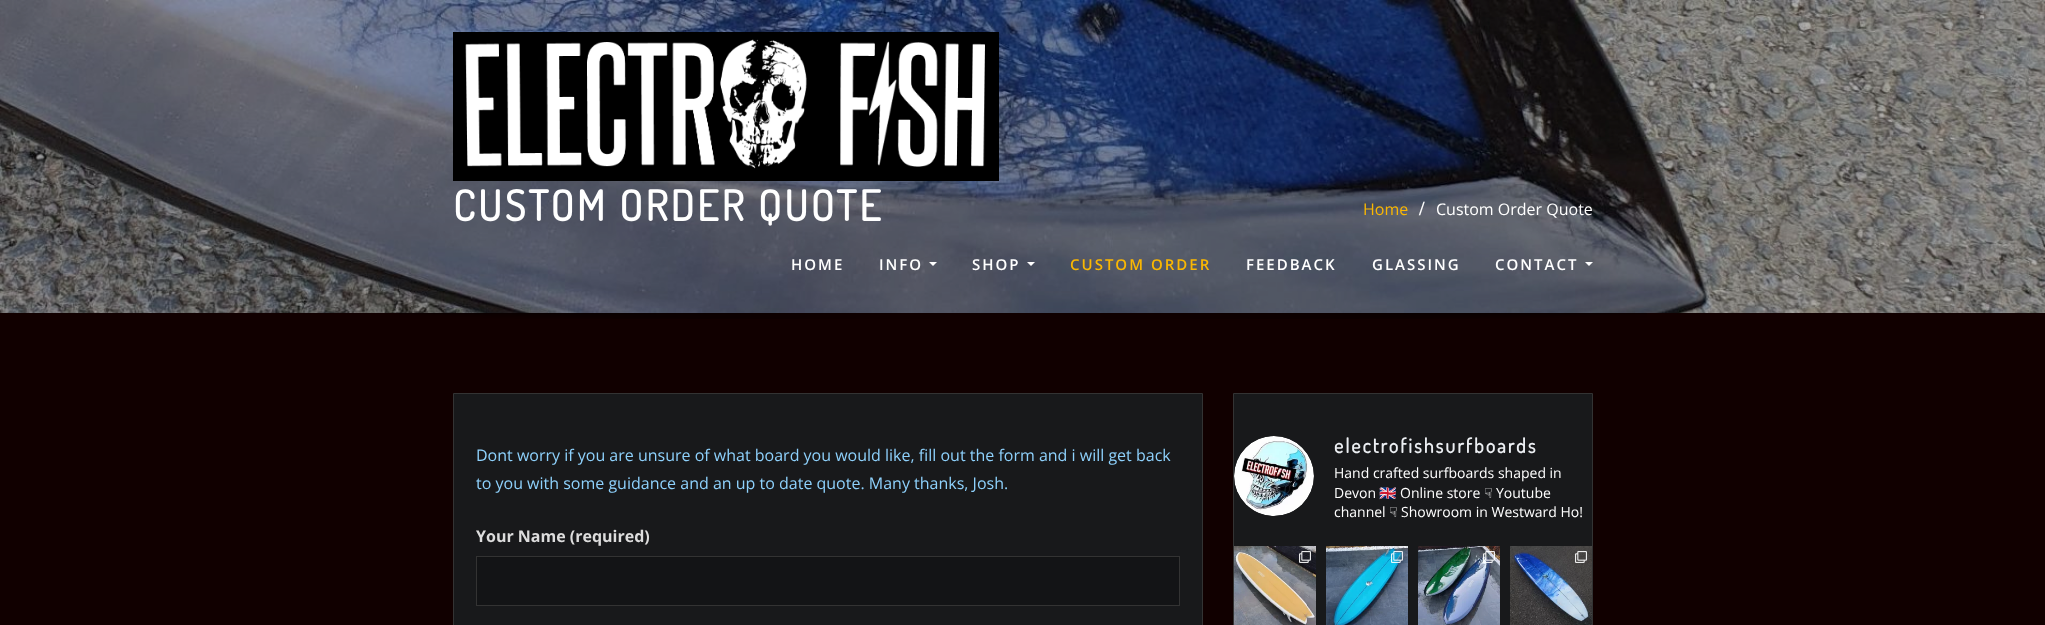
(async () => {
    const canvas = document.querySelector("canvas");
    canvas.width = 2045;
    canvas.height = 625;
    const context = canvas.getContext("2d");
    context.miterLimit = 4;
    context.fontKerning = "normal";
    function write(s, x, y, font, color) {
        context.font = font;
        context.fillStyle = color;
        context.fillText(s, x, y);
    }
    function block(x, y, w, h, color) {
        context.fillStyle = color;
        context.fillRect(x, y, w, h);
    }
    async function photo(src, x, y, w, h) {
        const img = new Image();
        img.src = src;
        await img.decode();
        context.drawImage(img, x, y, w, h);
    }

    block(0, 0, 2045, 625, "rgb(17, 0, 0)");
    await photo("media/1.png", 0, 0, 2045, 313);
    context.letterSpacing = "3px";
    write("CUSTOM ORDER QUOTE", 453, 221, "bold 42px Dosis", "rgb(255, 255, 255)");
    context.letterSpacing = "0px";
    write("Home", 1363, 215, "16px Open Sans", "rgb(250, 183, 2)");
    context.letterSpacing = "2px";
    write("/", 1419, 215, "bold 20px Liberation Serif", "rgb(255, 255, 255)");
    context.letterSpacing = "0px";
    write("Custom Order Quote", 1436, 215, "16px Open Sans", "rgb(255, 255, 255)");
    await photo("media/2.png", 399, 313, 1248, 6);
    await photo("media/3.png", 453, 32, 546, 149);
    context.letterSpacing = "2px";
    write("HOME", 791, 270, "600 15px Open Sans", "rgb(255, 255, 255)");
    write("INFO", 879, 270, "600 15px Open Sans", "rgb(255, 255, 255)");
    context.beginPath();
    context.moveTo(929, 262);
    context.lineTo(937, 262);
    context.lineTo(933, 266);
    context.closePath();
    context.fill();
    write("SHOP", 972, 270, "600 15px Open Sans", "rgb(255, 255, 255)");
    context.beginPath();
    context.moveTo(1027, 262);
    context.lineTo(1035, 262);
    context.lineTo(1031, 266);
    context.closePath();
    context.fill();
    write("CUSTOM ORDER", 1070, 270, "600 15px Open Sans", "rgb(250, 183, 2)");
    write("FEEDBACK", 1246, 270, "600 15px Open Sans", "rgb(255, 255, 255)");
    write("GLASSING", 1372, 270, "600 15px Open Sans", "rgb(255, 255, 255)");
    write("CONTACT", 1495, 270, "600 15px Open Sans", "rgb(255, 255, 255)");
    context.beginPath();
    context.moveTo(1585, 262);
    context.lineTo(1593, 262);
    context.lineTo(1589, 266);
    context.closePath();
    context.fill();
    context.fillStyle = "rgb(24, 25, 27)";
    context.beginPath();
    context.rect(453.5, 393.5, 749, 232);
    context.fill();
    context.strokeStyle = "rgb(51, 51, 51)";
    context.stroke();
    context.letterSpacing = "0px";
    write("Dont worry if you are unsure of what board you would like, fill out the form and i will get back", 476, 461, "16px Open Sans", "rgb(142, 209, 252)");
    write("to you with some guidance and an up to date quote. Many thanks, Josh.", 476, 489, "16px Open Sans", "rgb(142, 209, 252)");
    write("Your Name (required)", 476, 542, "bold 16px Open Sans", "rgb(221, 221, 221)");
    block(477, 558, 702, 47, "rgb(19, 20, 22)");
    block(477, 557, 702, 1, "rgb(18, 19, 20)");
    context.strokeRect(476.5, 556.5, 703, 49);
    context.fillStyle = "rgb(24, 25, 27)";
    context.beginPath();
    context.rect(1233.5, 393.5, 359, 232);
    context.fill();
    context.stroke();
    await photo("media/4.png", 1234, 436, 80, 80);
    context.letterSpacing = "2px";
    write("electrofishsurfboards", 1334, 453, "bold 20px Dosis", "rgb(236, 239, 243)");
    context.letterSpacing = "0px";
    write("Hand crafted surfboards shaped in", 1334, 478, "14px Open Sans", "rgb(255, 255, 255)");
    write("Devon", 1334, 498, "14px Open Sans", "rgb(255, 255, 255)");
    write("🇬🇧", 1379, 498, "14px Noto Color Emoji", "rgb(255, 255, 255)");
    write("Online store", 1400, 498, "14px Open Sans", "rgb(255, 255, 255)");
    write("☟", 1484, 498, "14px DejaVu Sans", "rgb(255, 255, 255)");
    write("Youtube", 1496, 498, "14px Open Sans", "rgb(255, 255, 255)");
    write("channel", 1334, 517, "14px Open Sans", "rgb(255, 255, 255)");
    write("☟", 1389, 517, "14px DejaVu Sans", "rgb(255, 255, 255)");
    write("Showroom in Westward Ho!", 1401, 517, "14px Open Sans", "rgb(255, 255, 255)");
    await photo("media/5.png", 1234, 546, 82, 79);
    await photo("media/6.png", 1299, 551, 12, 12);
    await photo("media/7.png", 1326, 546, 82, 79);
    await photo("media/8.png", 1391, 551, 12, 12);
    await photo("media/9.png", 1418, 546, 82, 79);
    await photo("media/10.png", 1483, 551, 12, 12);
    await photo("media/11.png", 1510, 546, 82, 79);
    await photo("media/12.png", 1575, 551, 12, 12);
})();
